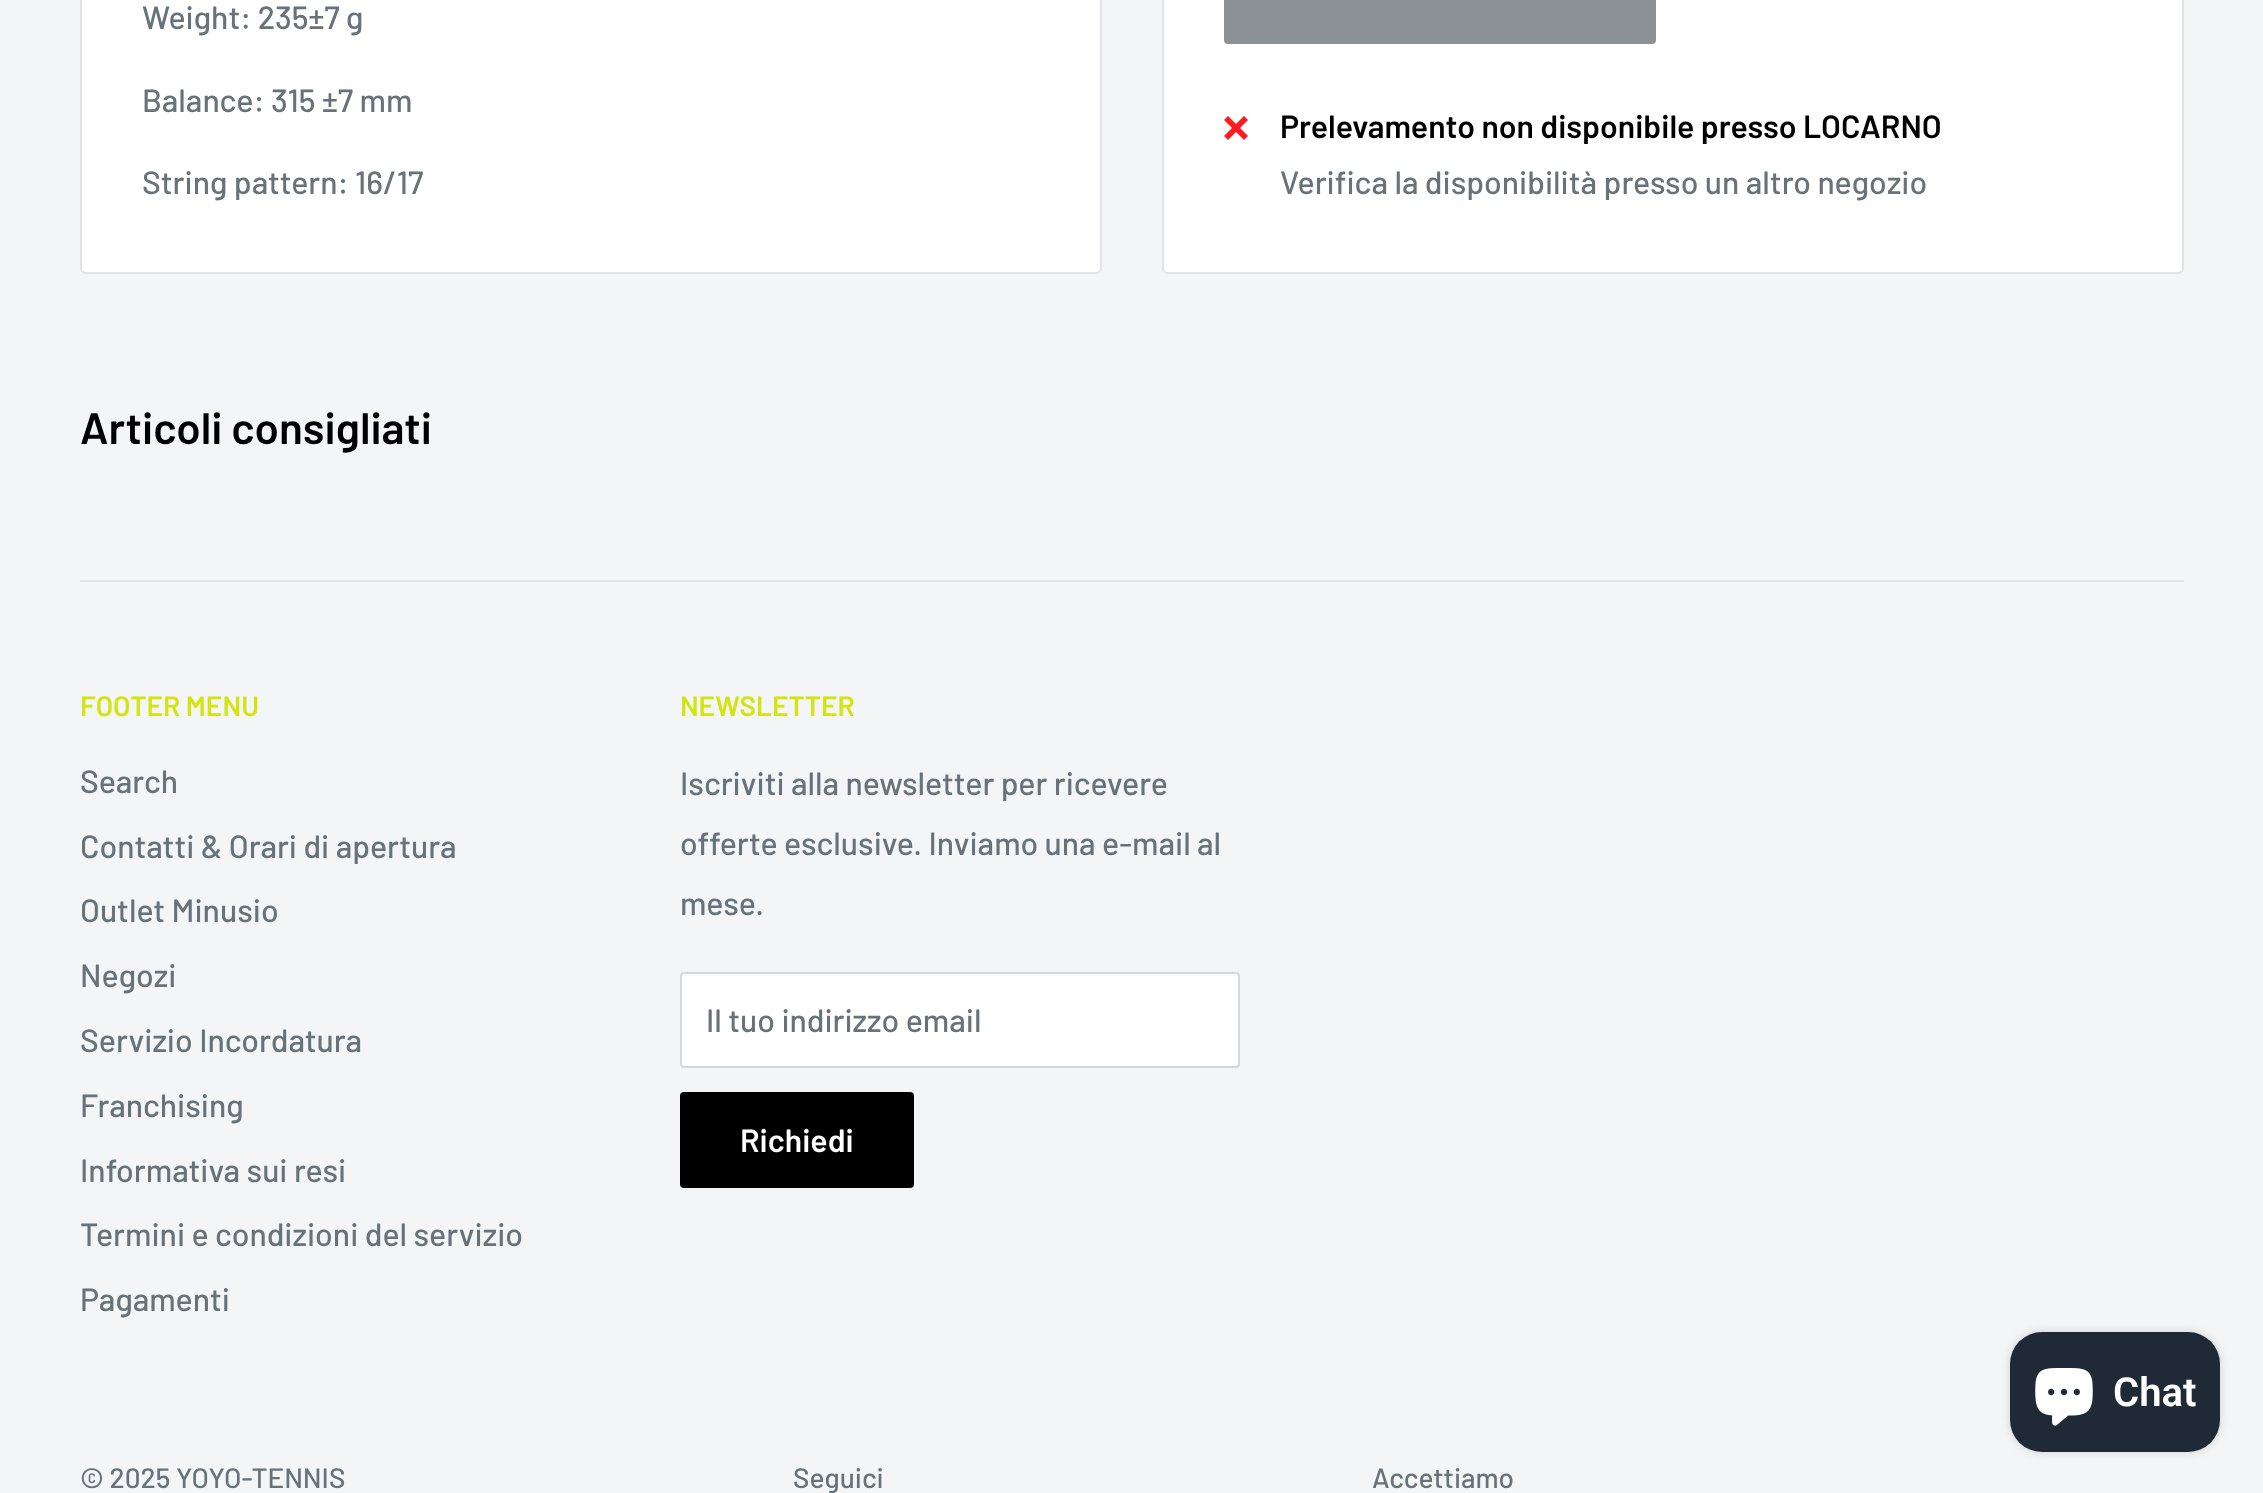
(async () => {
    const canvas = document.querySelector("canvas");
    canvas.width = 2263;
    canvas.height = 1493;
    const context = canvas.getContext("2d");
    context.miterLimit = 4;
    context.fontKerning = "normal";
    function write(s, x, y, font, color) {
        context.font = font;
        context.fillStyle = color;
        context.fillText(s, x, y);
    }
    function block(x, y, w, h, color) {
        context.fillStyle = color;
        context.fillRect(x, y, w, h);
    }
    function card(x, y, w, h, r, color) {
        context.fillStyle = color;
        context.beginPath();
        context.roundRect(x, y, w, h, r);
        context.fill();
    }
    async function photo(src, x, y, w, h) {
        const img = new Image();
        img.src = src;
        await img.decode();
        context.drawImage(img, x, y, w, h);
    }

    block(0, 0, 2263, 1493, "rgb(243, 245, 246)");
    context.fillStyle = "rgb(255, 255, 255)";
    context.beginPath();
    context.roundRect(81, -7, 1020, 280, 5);
    context.fill();
    context.strokeStyle = "rgb(225, 227, 228)";
    context.lineWidth = 2;
    context.stroke();
    write("Weight: 235±7 g", 142, 29, "500 32px Barlow", "rgb(103, 114, 121)");
    write("Balance: 315 ±7 mm", 142, 112, "500 32px Barlow", "rgb(103, 114, 121)");
    write("String pattern: 16/17", 142, 194, "500 32px Barlow", "rgb(103, 114, 121)");
    context.fillStyle = "rgb(255, 255, 255)";
    context.beginPath();
    context.roundRect(1163, -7, 1020, 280, 5);
    context.fill();
    context.stroke();
    context.fillStyle = "rgb(138, 146, 151)";
    context.beginPath();
    context.roundRect(1225, -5, 430, 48, 3);
    context.fill();
    context.strokeStyle = "rgb(138, 146, 151)";
    context.stroke();
    await photo("media/1.png", 1224, 116, 24, 24);
    write("Prelevamento non disponibile presso LOCARNO", 1280, 138, "600 32px Barlow", "rgb(0, 0, 0)");
    write("Verifica la disponibilità presso un altro negozio", 1280, 194, "500 32px Barlow", "rgb(103, 114, 121)");
    write("Articoli consigliati", 80, 444, "600 44px Barlow", "rgb(0, 0, 0)");
    block(80, 580, 2104, 2, "rgb(225, 227, 228)");
    write("FOOTER MENU", 80, 716, "600 28px Barlow", "rgb(212, 228, 16)");
    write("Search", 80, 793, "500 32px Barlow", "rgb(103, 114, 121)");
    write("Contatti & Orari di apertura", 80, 858, "500 32px Barlow", "rgb(103, 114, 121)");
    write("Outlet Minusio", 80, 922, "500 32px Barlow", "rgb(103, 114, 121)");
    write("Negozi", 80, 987, "500 32px Barlow", "rgb(103, 114, 121)");
    write("Servizio Incordatura", 80, 1052, "500 32px Barlow", "rgb(103, 114, 121)");
    write("Franchising", 80, 1117, "500 32px Barlow", "rgb(103, 114, 121)");
    write("Informativa sui resi", 80, 1182, "500 32px Barlow", "rgb(103, 114, 121)");
    write("Termini e condizioni del servizio", 80, 1246, "500 32px Barlow", "rgb(103, 114, 121)");
    write("Pagamenti", 80, 1311, "500 32px Barlow", "rgb(103, 114, 121)");
    write("NEWSLETTER", 680, 716, "600 28px Barlow", "rgb(212, 228, 16)");
    write("Iscriviti alla newsletter per ricevere", 680, 795, "500 32px Barlow", "rgb(103, 114, 121)");
    write("offerte esclusive. Inviamo una e-mail al", 680, 855, "500 32px Barlow", "rgb(103, 114, 121)");
    write("mese.", 680, 915, "500 32px Barlow", "rgb(103, 114, 121)");
    card(680, 972, 560, 96, 4, "rgb(255, 255, 255)");
    context.fillStyle = "rgb(248, 248, 248)";
    context.beginPath();
    context.moveTo(684, 976);
    context.lineTo(1236, 976);
    context.bezierCurveTo(1237, 976, 1238, 977, 1238, 978);
    context.bezierCurveTo(1238, 976, 1238, 974, 1236, 974);
    context.lineTo(684, 974);
    context.lineTo(682, 975);
    context.lineTo(682, 978);
    context.bezierCurveTo(682, 977, 683, 976, 684, 976);
    context.closePath();
    context.fill();
    context.beginPath();
    context.roundRect(681, 973, 558, 94, 3);
    context.strokeStyle = "rgb(212, 214, 216)";
    context.stroke();
    write("Il tuo indirizzo email", 706, 1032, "500 32px Barlow", "rgb(103, 114, 121)");
    card(680, 1092, 234, 96, 4, "rgb(0, 0, 0)");
    write("Richiedi", 740, 1152, "600 32px Barlow", "rgb(255, 255, 255)");
    write("© 2025 YOYO-TENNIS", 80, 1488, "500 28px Barlow", "rgb(103, 114, 121)");
    write("Seguici", 793, 1488, "500 28px Barlow", "rgb(103, 114, 121)");
    write("Accettiamo", 1372, 1488, "500 28px Barlow", "rgb(103, 114, 121)");
    context.fillStyle = "rgba(0, 0, 0, 0.15)";
    context.filter = "blur(5px)";
    context.beginPath();
    context.roundRect(2010, 1332, 210, 120, 32);
    context.fill();
    context.filter = "none";
    card(2010, 1332, 210, 120, 32, "rgb(32, 42, 54)");
    await photo("media/2.png", 2035, 1368, 58, 58);
    write("Chat", 2113, 1406, "600 40px Roboto", "rgb(255, 255, 255)");
})();
